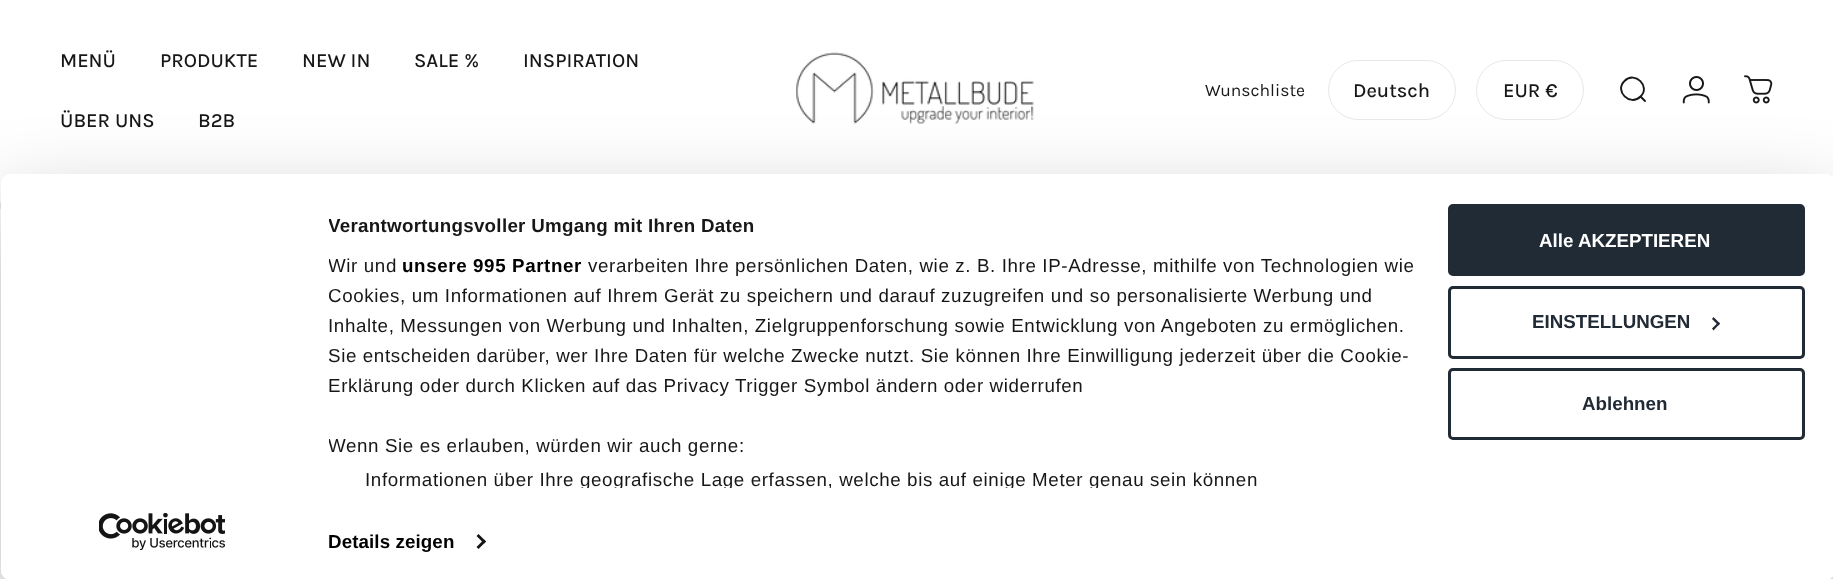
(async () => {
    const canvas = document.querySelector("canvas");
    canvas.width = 1833;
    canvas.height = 579;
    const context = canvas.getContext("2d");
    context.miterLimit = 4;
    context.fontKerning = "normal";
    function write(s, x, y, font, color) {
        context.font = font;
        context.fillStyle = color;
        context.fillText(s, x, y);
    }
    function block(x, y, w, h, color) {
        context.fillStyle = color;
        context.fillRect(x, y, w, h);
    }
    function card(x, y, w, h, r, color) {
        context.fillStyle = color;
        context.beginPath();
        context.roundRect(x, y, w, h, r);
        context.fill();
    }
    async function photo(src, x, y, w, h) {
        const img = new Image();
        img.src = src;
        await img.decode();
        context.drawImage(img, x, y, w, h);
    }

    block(0, 0, 1833, 579, "rgb(255, 255, 255)");
    write("MENÜ", 60, 67, "500 20px Karla", "rgb(23, 23, 23)");
    write("PRODUKTE", 160, 67, "500 20px Karla", "rgb(23, 23, 23)");
    write("NEW IN", 302, 67, "500 20px Karla", "rgb(23, 23, 23)");
    write("SALE %", 414, 67, "500 20px Karla", "rgb(23, 23, 23)");
    write("INSPIRATION", 523, 67, "500 20px Karla", "rgb(23, 23, 23)");
    write("ÜBER UNS", 60, 127, "500 20px Karla", "rgb(23, 23, 23)");
    write("B2B", 198, 127, "500 20px Karla", "rgb(23, 23, 23)");
    await photo("media/1.png", 796, 52, 238, 72);
    write("Wunschliste", 1205, 96, "17.5px Karla", "rgb(23, 23, 23)");
    context.beginPath();
    context.roundRect(1328.5, 60.5, 127, 59, 29.5);
    context.strokeStyle = "rgb(232, 232, 232)";
    context.stroke();
    write("Deutsch", 1353, 97, "500 20px Karla", "rgb(23, 23, 23)");
    context.beginPath();
    context.roundRect(1476.5, 60.5, 107, 59, 29.5);
    context.stroke();
    write("EUR €", 1503, 97, "500 20px Karla", "rgb(23, 23, 23)");
    context.beginPath();
    context.moveTo(1645, 101);
    context.lineTo(1640.5, 96.5);
    context.moveTo(1640.5, 96.5);
    context.bezierCurveTo(1651, 86.5, 1635, 70.5, 1624.5, 81);
    context.bezierCurveTo(1614, 91, 1630, 107, 1640.5, 96.5);
    context.closePath();
    context.strokeStyle = "rgb(23, 23, 23)";
    context.lineWidth = 1.9;
    context.lineCap = "round";
    context.stroke();
    await photo("media/2.png", 1682, 76, 28, 28);
    await photo("media/3.png", 1744, 75, 29, 29);
    await photo("media/4.png", 0, 180, 2, 29);
    context.save();
    context.beginPath();
    context.moveTo(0, 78);
    context.lineTo(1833, 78);
    context.lineTo(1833, 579);
    context.lineTo(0, 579);
    context.closePath();
    context.moveTo(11, 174);
    context.lineTo(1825, 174);
    context.bezierCurveTo(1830.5, 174, 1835, 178.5, 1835, 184);
    context.lineTo(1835, 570);
    context.bezierCurveTo(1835, 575.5, 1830.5, 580, 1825, 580);
    context.lineTo(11, 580);
    context.bezierCurveTo(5.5, 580, 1, 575.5, 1, 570);
    context.lineTo(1, 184);
    context.bezierCurveTo(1, 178.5, 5.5, 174, 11, 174);
    context.closePath();
    context.clip("evenodd");
    context.fillStyle = "rgba(0, 0, 0, 0.3)";
    context.filter = "blur(44px)";
    context.beginPath();
    context.roundRect(1, 211, 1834, 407, 10);
    context.fill();
    context.filter = "none";
    context.restore();
    card(1, 174, 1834, 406, 10, "rgb(255, 255, 255)");
    context.save();
    context.beginPath();
    context.rect(329, 211, 1111, 277);
    context.clip();
    context.letterSpacing = "0.3px";
    write("Verantwortungsvoller Umgang mit Ihren Daten", 328, 232, "bold 18.75px Liberation Sans", "rgb(23, 23, 23)");
    context.letterSpacing = "0.62px";
    write("Wir und", 328, 272, "18.75px Liberation Sans", "rgb(23, 23, 23)");
    context.restore();
    context.letterSpacing = "0.62px";
    write("unsere 995 Partner", 402, 272, "bold 18.75px Liberation Sans", "rgb(0, 0, 0)");
    write("verarbeiten Ihre persönlichen Daten, wie z. B. Ihre IP-Adresse, mithilfe von Technologien wie", 588, 272, "18.75px Liberation Sans", "rgb(23, 23, 23)");
    context.save();
    context.beginPath();
    context.rect(329, 211, 1111, 277);
    context.clip();
    write("Cookies, um Informationen auf Ihrem Gerät zu speichern und darauf zuzugreifen und so personalisierte Werbung und", 328, 302, "18.75px Liberation Sans", "rgb(23, 23, 23)");
    context.restore();
    write("Inhalte, Messungen von Werbung und Inhalten, Zielgruppenforschung sowie Entwicklung von Angeboten zu ermöglichen.", 328, 332, "18.75px Liberation Sans", "rgb(23, 23, 23)");
    write("Sie entscheiden darüber, wer Ihre Daten für welche Zwecke nutzt. Sie können Ihre Einwilligung jederzeit über die Cookie-", 328, 362, "18.75px Liberation Sans", "rgb(23, 23, 23)");
    write("Erklärung oder durch Klicken auf das Privacy Trigger Symbol ändern oder widerrufen", 328, 392, "18.75px Liberation Sans", "rgb(23, 23, 23)");
    context.save();
    context.beginPath();
    context.rect(329, 211, 1111, 277);
    context.clip();
    write("Wenn Sie es erlauben, würden wir auch gerne:", 328, 452, "18.75px Liberation Sans", "rgb(23, 23, 23)");
    write("Informationen über Ihre geografische Lage erfassen, welche bis auf einige Meter genau sein können", 365, 486, "18.75px Liberation Sans", "rgb(23, 23, 23)");
    context.restore();
    context.letterSpacing = "0.1px";
    write("Details zeigen", 328, 548, "bold 18.75px Liberation Sans", "rgb(0, 0, 0)");
    context.fillStyle = "rgb(20, 20, 20)";
    context.beginPath();
    context.moveTo(478.5, 534);
    context.lineTo(486, 541.5);
    context.lineTo(484, 543.5);
    context.lineTo(476.5, 536);
    context.closePath();
    context.fill();
    context.beginPath();
    context.moveTo(484, 539.5);
    context.lineTo(486, 541.5);
    context.lineTo(478.5, 549);
    context.lineTo(476.5, 547);
    context.closePath();
    context.fill();
    context.fillStyle = "rgb(33, 43, 54)";
    context.beginPath();
    context.roundRect(1449.5, 205.5, 354, 69, 3.5);
    context.fill();
    context.strokeStyle = "rgb(33, 43, 54)";
    context.lineWidth = 3;
    context.stroke();
    context.letterSpacing = "0px";
    write("Alle AKZEPTIEREN", 1539, 247, "bold 18.75px Liberation Sans", "rgb(255, 255, 255)");
    context.beginPath();
    context.roundRect(1449.5, 287.5, 354, 70, 3.5);
    context.stroke();
    write("EINSTELLUNGEN", 1532, 328, "bold 18.75px Liberation Sans", "rgb(33, 43, 54)");
    context.beginPath();
    context.moveTo(1713.5, 317);
    context.lineTo(1720, 323.5);
    context.lineTo(1718.5, 325.5);
    context.lineTo(1712, 319);
    context.closePath();
    context.fill();
    context.beginPath();
    context.moveTo(1718.5, 322);
    context.lineTo(1720, 323.5);
    context.lineTo(1713.5, 330.5);
    context.lineTo(1712, 328.5);
    context.closePath();
    context.fill();
    context.beginPath();
    context.roundRect(1449.5, 369.5, 354, 69, 3.5);
    context.stroke();
    write("Ablehnen", 1582, 410, "bold 18.75px Liberation Sans", "rgb(33, 43, 54)");
    await photo("media/5.png", 99, 513, 126, 37);
})();
